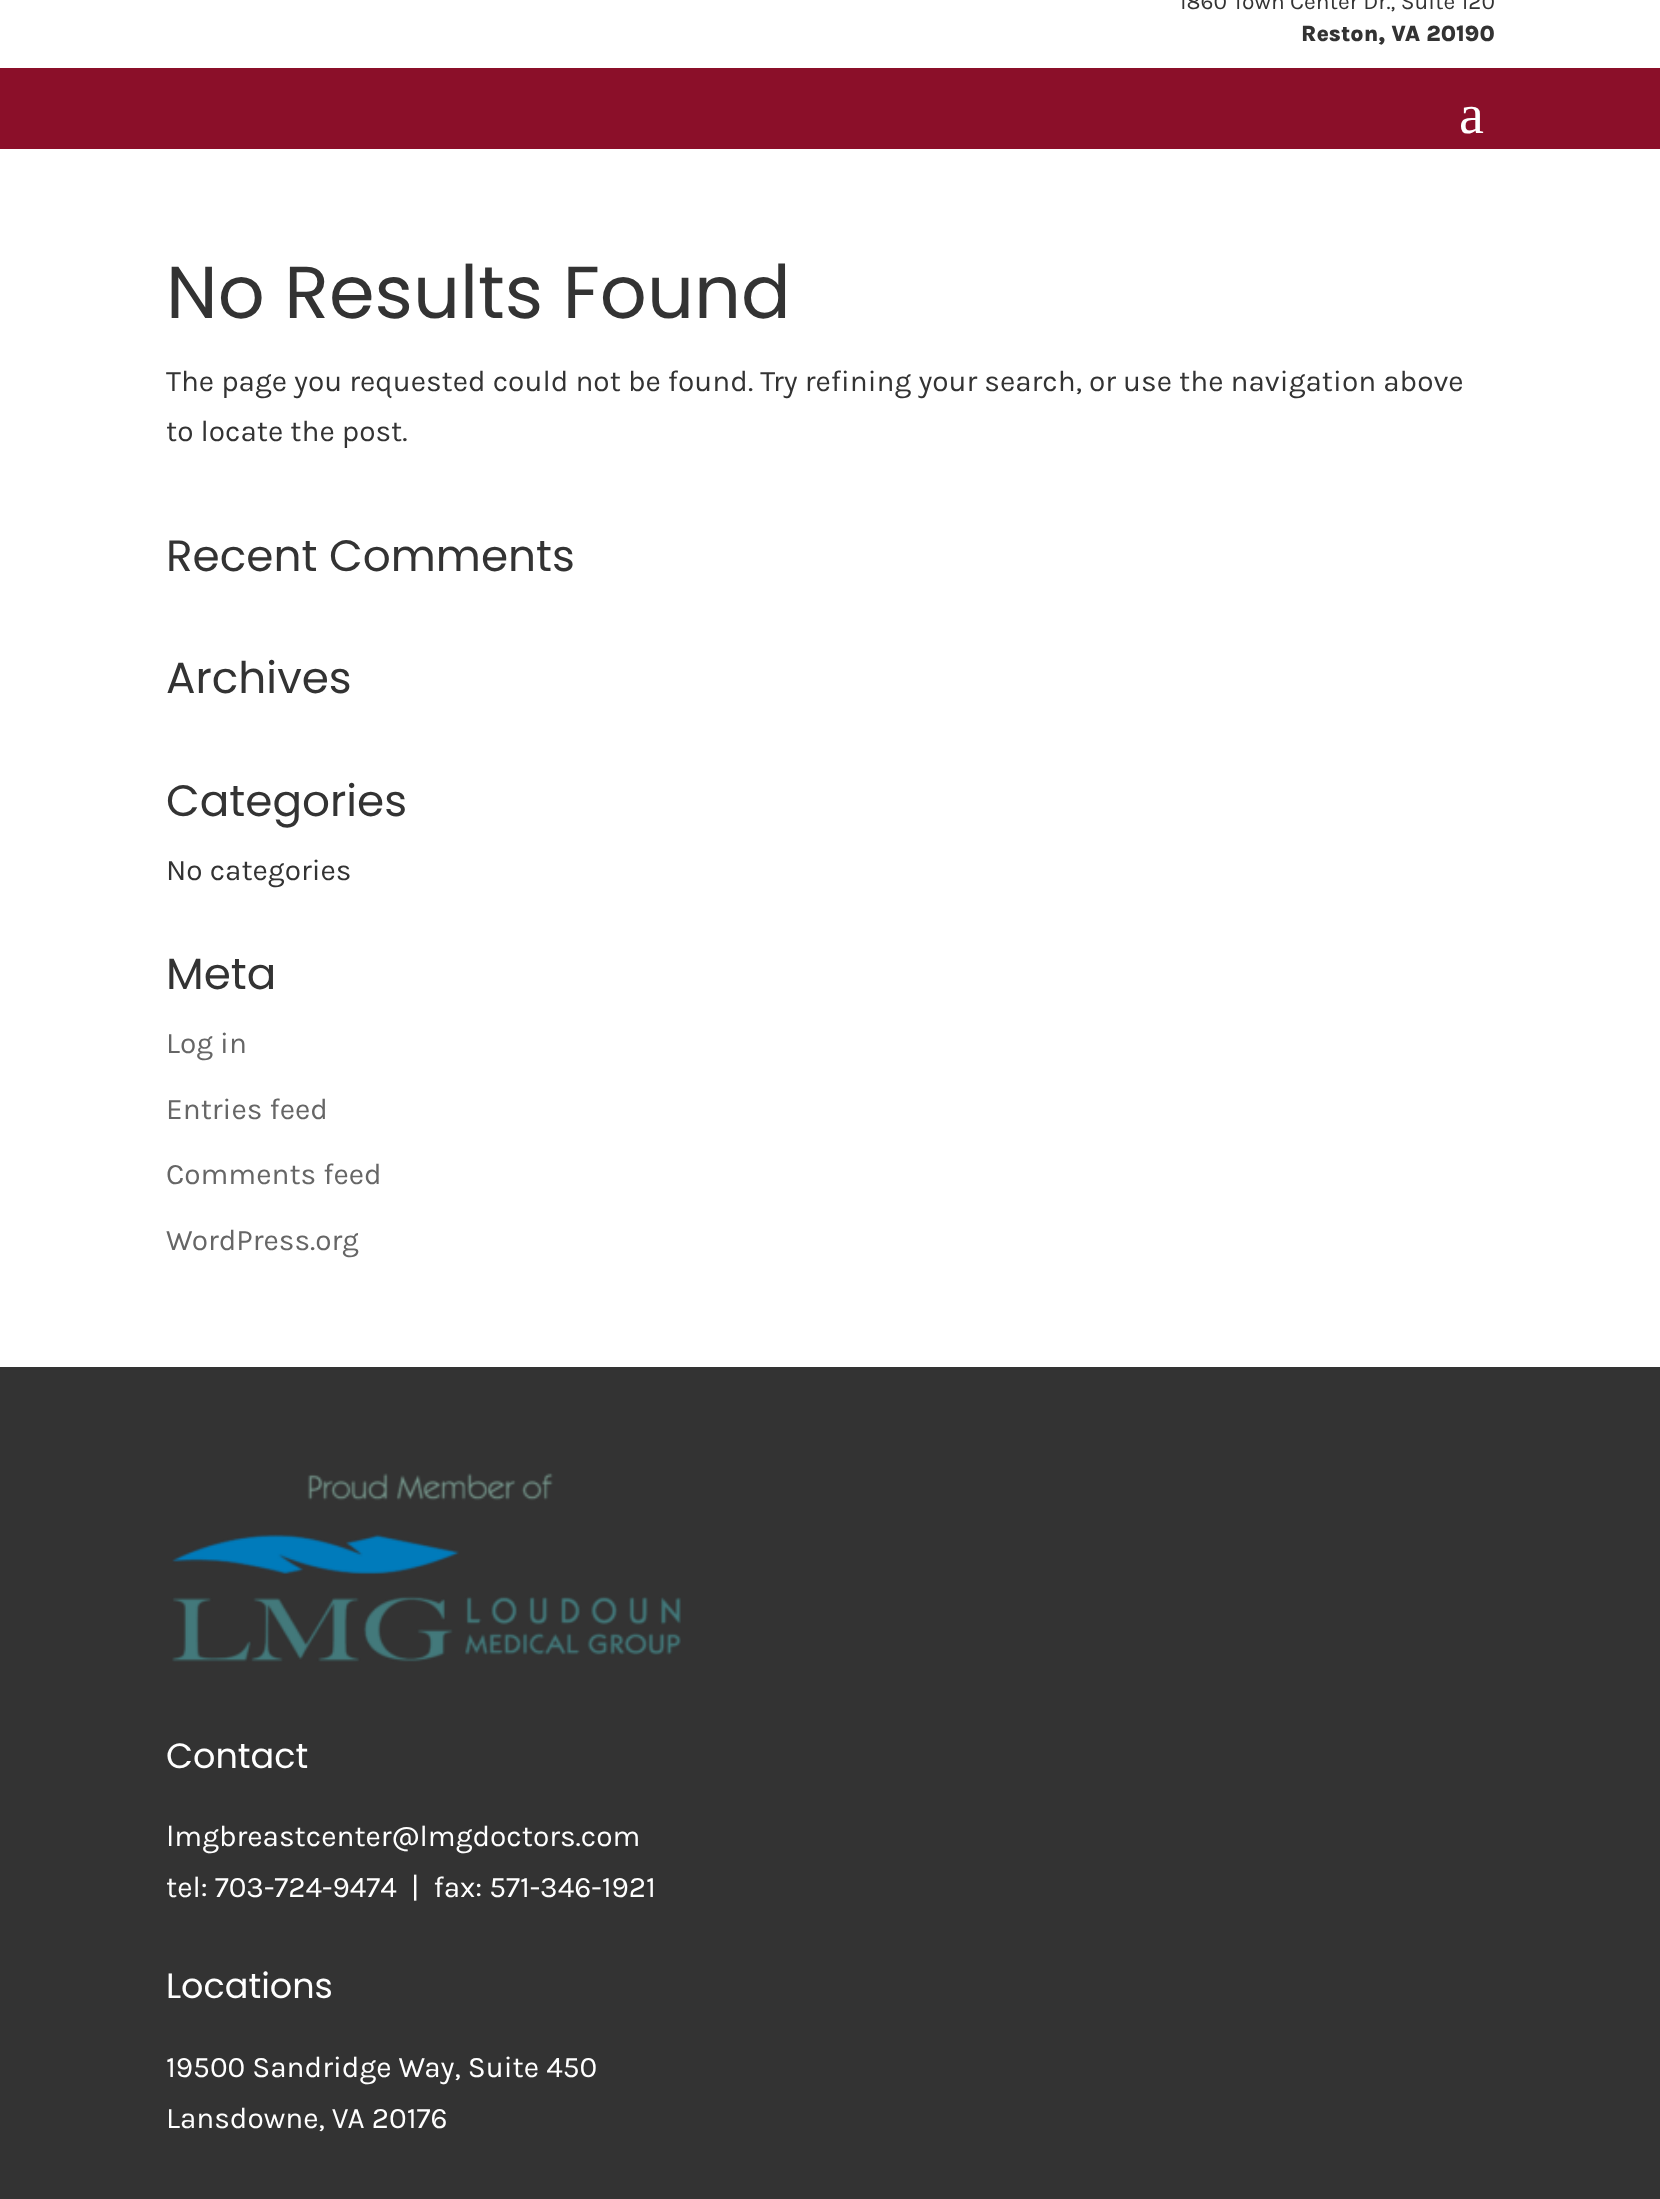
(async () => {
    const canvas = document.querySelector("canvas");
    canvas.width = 1660;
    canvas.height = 2199;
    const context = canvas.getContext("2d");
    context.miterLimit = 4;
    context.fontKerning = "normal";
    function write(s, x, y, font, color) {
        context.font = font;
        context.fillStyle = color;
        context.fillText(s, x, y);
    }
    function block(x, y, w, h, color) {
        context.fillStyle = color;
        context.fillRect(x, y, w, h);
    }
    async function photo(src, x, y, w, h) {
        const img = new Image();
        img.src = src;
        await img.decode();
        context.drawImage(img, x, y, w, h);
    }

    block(0, 0, 1660, 2199, "rgb(255, 255, 255)");
    write("1860 Town Center Dr., Suite 120", 1179, 9, "22.75px Karla", "rgb(51, 51, 51)");
    write("Reston, VA 20190", 1301, 41, "800 22.75px Karla", "rgb(51, 51, 51)");
    block(0, 68, 1660, 81, "rgb(139, 15, 41)");
    write("a", 1459, 133, "56px Liberation Serif", "rgb(255, 255, 255)");
    write("No Results Found", 166, 318, "73.5px Poppins", "rgb(51, 51, 51)");
    write("The page you requested could not be found. Try refining your search, or use the navigation above", 166, 391, "29.75px Karla", "rgb(51, 51, 51)");
    write("to locate the post.", 166, 441, "29.75px Karla", "rgb(51, 51, 51)");
    write("Recent Comments", 166, 571, "43.75px Poppins", "rgb(51, 51, 51)");
    write("Archives", 166, 693, "43.75px Poppins", "rgb(51, 51, 51)");
    write("Categories", 166, 816, "43.75px Poppins", "rgb(51, 51, 51)");
    write("No categories", 166, 880, "29.75px Karla", "rgb(51, 51, 51)");
    write("Meta", 166, 989, "43.75px Poppins", "rgb(51, 51, 51)");
    write("Log in", 166, 1053, "29.75px Karla", "rgb(102, 102, 102)");
    write("Entries feed", 166, 1119, "29.75px Karla", "rgb(102, 102, 102)");
    write("Comments feed", 166, 1184, "29.75px Karla", "rgb(102, 102, 102)");
    write("WordPress.org", 166, 1250, "29.75px Karla", "rgb(102, 102, 102)");
    block(0, 1367, 1660, 832, "rgb(51, 51, 51)");
    await photo("media/1.png", 172, 1473, 509, 189);
    write("Contact", 166, 1768, "35px Poppins", "rgb(255, 255, 255)");
    write("lmgbreastcenter@lmgdoctors.com", 166, 1846, "29.75px Karla", "rgb(255, 255, 255)");
    write("tel: 703-724-9474", 166, 1897, "29.75px Karla", "rgb(255, 255, 255)");
    write("|  fax: 571-346-1921", 411, 1897, "29.75px Karla", "rgb(255, 255, 255)");
    write("Locations", 166, 1998, "35px Poppins", "rgb(255, 255, 255)");
    write("19500 Sandridge Way, Suite 450", 166, 2077, "29.75px Karla", "rgb(255, 255, 255)");
    write("Lansdowne, VA 20176", 166, 2128, "29.75px Karla", "rgb(255, 255, 255)");
})();
